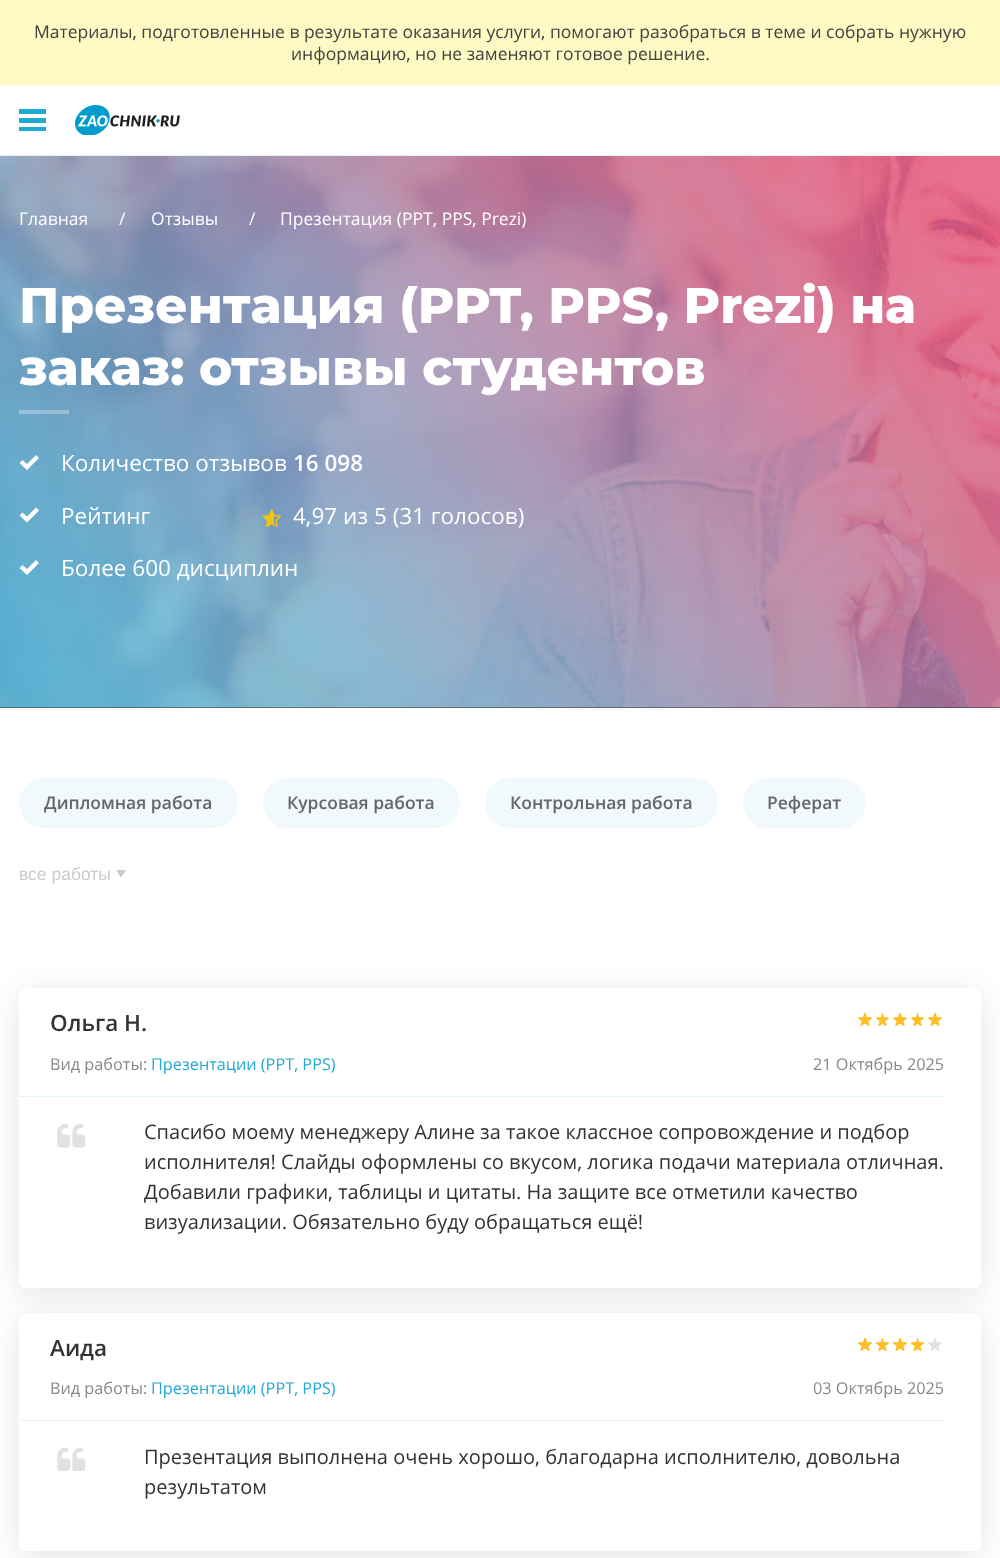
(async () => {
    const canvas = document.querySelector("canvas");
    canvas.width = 1000;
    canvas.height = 1558;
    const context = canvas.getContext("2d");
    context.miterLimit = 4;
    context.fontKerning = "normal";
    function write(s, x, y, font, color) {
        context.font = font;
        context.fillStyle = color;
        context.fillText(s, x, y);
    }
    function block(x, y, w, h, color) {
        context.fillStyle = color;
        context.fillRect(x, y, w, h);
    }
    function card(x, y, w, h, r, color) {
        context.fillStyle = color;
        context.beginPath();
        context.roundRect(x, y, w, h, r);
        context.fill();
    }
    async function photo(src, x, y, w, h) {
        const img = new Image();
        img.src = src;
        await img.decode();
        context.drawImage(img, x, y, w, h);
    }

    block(0, 0, 1000, 1558, "rgb(255, 255, 255)");
    block(0, 155, 1000, 1, "rgb(222, 242, 248)");
    block(0, 0, 1000, 85, "rgb(255, 249, 196)");
    write("Материалы, подготовленные в результате оказания услуги, помогают разобраться в теме и собрать нужную", 34, 38, "17.5px Open Sans", "rgb(66, 66, 66)");
    write("информацию, но не заменяют готовое решение.", 291, 60, "17.5px Open Sans", "rgb(66, 66, 66)");
    block(19, 109, 27, 22, "rgb(34, 169, 211)");
    block(19, 114, 27, 4, "rgb(255, 255, 255)");
    block(19, 123, 27, 4, "rgb(255, 255, 255)");
    await photo("media/1.png", 75, 105, 105, 30);
    block(0, 707, 1000, 1, "rgb(51, 51, 51)");
    await photo("media/2.png", 0, 156, 1000, 552);
    write("Главная", 19, 225, "17.5px Open Sans", "rgb(255, 255, 255)");
    write("/", 119, 225, "17.5px Open Sans", "rgb(255, 255, 255)");
    write("Отзывы", 151, 225, "17.5px Open Sans", "rgb(255, 255, 255)");
    write("/", 249, 225, "17.5px Open Sans", "rgb(255, 255, 255)");
    write("Презентация (PPT, PPS, Prezi)", 280, 225, "17.5px Open Sans", "rgb(255, 255, 255)");
    write("Презентация (PPT, PPS, Prezi) на", 19, 323, "800 50px Montserrat", "rgb(255, 255, 255)");
    write("заказ: отзывы студентов", 19, 385, "800 50px Montserrat", "rgb(255, 255, 255)");
    block(19, 410, 50, 4, "rgba(255, 255, 255, 0.3)");
    context.fillStyle = "rgb(255, 255, 255)";
    context.beginPath();
    context.moveTo(36, 455);
    context.lineTo(27, 464);
    context.lineTo(22.5, 460);
    context.lineTo(19.5, 463);
    context.lineTo(27, 470);
    context.lineTo(39, 458);
    context.closePath();
    context.fill("evenodd");
    write("Количество отзывов", 61, 471, "22.5px Open Sans", "rgb(255, 255, 255)");
    write("16 098", 293, 471, "600 22.5px Open Sans", "rgb(255, 255, 255)");
    context.beginPath();
    context.moveTo(36, 507.5);
    context.lineTo(27, 516.5);
    context.lineTo(22.5, 512.5);
    context.lineTo(19.5, 515.5);
    context.lineTo(27, 522.5);
    context.lineTo(39, 510.5);
    context.closePath();
    context.fill("evenodd");
    write("Рейтинг", 61, 524, "22.5px Open Sans", "rgb(255, 255, 255)");
    await photo("media/3.png", 263, 509, 18, 19);
    write("4,97 из 5 (31 голосов)", 293, 524, "22.5px Open Sans", "rgb(255, 255, 255)");
    context.beginPath();
    context.moveTo(36, 560);
    context.lineTo(27, 569);
    context.lineTo(22.5, 565);
    context.lineTo(19.5, 568);
    context.lineTo(27, 575);
    context.lineTo(39, 563);
    context.closePath();
    context.fill("evenodd");
    write("Более 600 дисциплин", 61, 576, "22.5px Open Sans", "rgb(255, 255, 255)");
    card(19, 778, 219, 50, 25, "rgb(241, 249, 253)");
    write("Дипломная работа", 44, 809, "600 17.5px Open Sans", "rgb(102, 102, 102)");
    card(263, 778, 197, 50, 25, "rgb(241, 249, 253)");
    write("Курсовая работа", 287, 809, "600 17.5px Open Sans", "rgb(102, 102, 102)");
    card(485, 778, 233, 50, 25, "rgb(241, 249, 253)");
    write("Контрольная работа", 510, 809, "600 17.5px Open Sans", "rgb(102, 102, 102)");
    card(743, 778, 123, 50, 25, "rgb(241, 249, 253)");
    write("Реферат", 767, 809, "600 17.5px Open Sans", "rgb(102, 102, 102)");
    write("все работы", 19, 880, "17.5px Liberation Sans", "rgb(203, 203, 203)");
    context.beginPath();
    context.moveTo(116, 870);
    context.lineTo(126, 870);
    context.lineTo(121, 877.5);
    context.closePath();
    context.fill();
    context.fillStyle = "rgba(0, 0, 0, 0.1)";
    context.filter = "blur(15.5px)";
    context.beginPath();
    context.roundRect(19, 994, 962, 300, 6);
    context.fill();
    context.filter = "none";
    card(19, 988, 962, 300, 6, "rgb(255, 255, 255)");
    block(19, 1096, 925, 1, "rgb(227, 244, 250)");
    write("Ольга Н.", 50, 1031, "600 22.5px Open Sans", "rgb(51, 51, 51)");
    await photo("media/4.png", 858, 1013, 84, 13);
    await photo("media/5.png", 858, 1012, 84, 14);
    write("Вид работы:", 50, 1070, "16.25px Open Sans", "rgb(136, 136, 136)");
    write("Презентации (PPT, PPS)", 151, 1070, "16.25px Open Sans", "rgb(34, 169, 211)");
    write("21 Октябрь 2025", 813, 1070, "16.25px Open Sans", "rgb(136, 136, 136)");
    await photo("media/6.png", 57, 1124, 29, 24);
    write("Спасибо моему менеджеру Алине за такое классное сопровождение и подбор", 144, 1139, "20px Open Sans", "rgb(51, 51, 51)");
    write("исполнителя! Слайды оформлены со вкусом, логика подачи материала отличная.", 144, 1169, "20px Open Sans", "rgb(51, 51, 51)");
    write("Добавили графики, таблицы и цитаты. На защите все отметили качество", 144, 1199, "20px Open Sans", "rgb(51, 51, 51)");
    write("визуализации. Обязательно буду обращаться ещё!", 144, 1229, "20px Open Sans", "rgb(51, 51, 51)");
    context.fillStyle = "rgba(0, 0, 0, 0.1)";
    context.filter = "blur(15.5px)";
    context.beginPath();
    context.roundRect(19, 1319, 962, 239, 6);
    context.fill();
    context.filter = "none";
    card(19, 1313, 962, 238, 6, "rgb(255, 255, 255)");
    block(19, 1420, 925, 1, "rgb(227, 244, 250)");
    write("Аида", 50, 1356, "600 22.5px Open Sans", "rgb(51, 51, 51)");
    await photo("media/4.png", 858, 1338, 84, 13);
    await photo("media/7.png", 858, 1337, 66, 14);
    write("Вид работы:", 50, 1394, "16.25px Open Sans", "rgb(136, 136, 136)");
    write("Презентации (PPT, PPS)", 151, 1394, "16.25px Open Sans", "rgb(34, 169, 211)");
    write("03 Октябрь 2025", 813, 1394, "16.25px Open Sans", "rgb(136, 136, 136)");
    await photo("media/8.png", 57, 1448, 29, 23);
    write("Презентация выполнена очень хорошо, благодарна исполнителю, довольна", 144, 1464, "20px Open Sans", "rgb(51, 51, 51)");
    write("результатом", 144, 1494, "20px Open Sans", "rgb(51, 51, 51)");
})();
